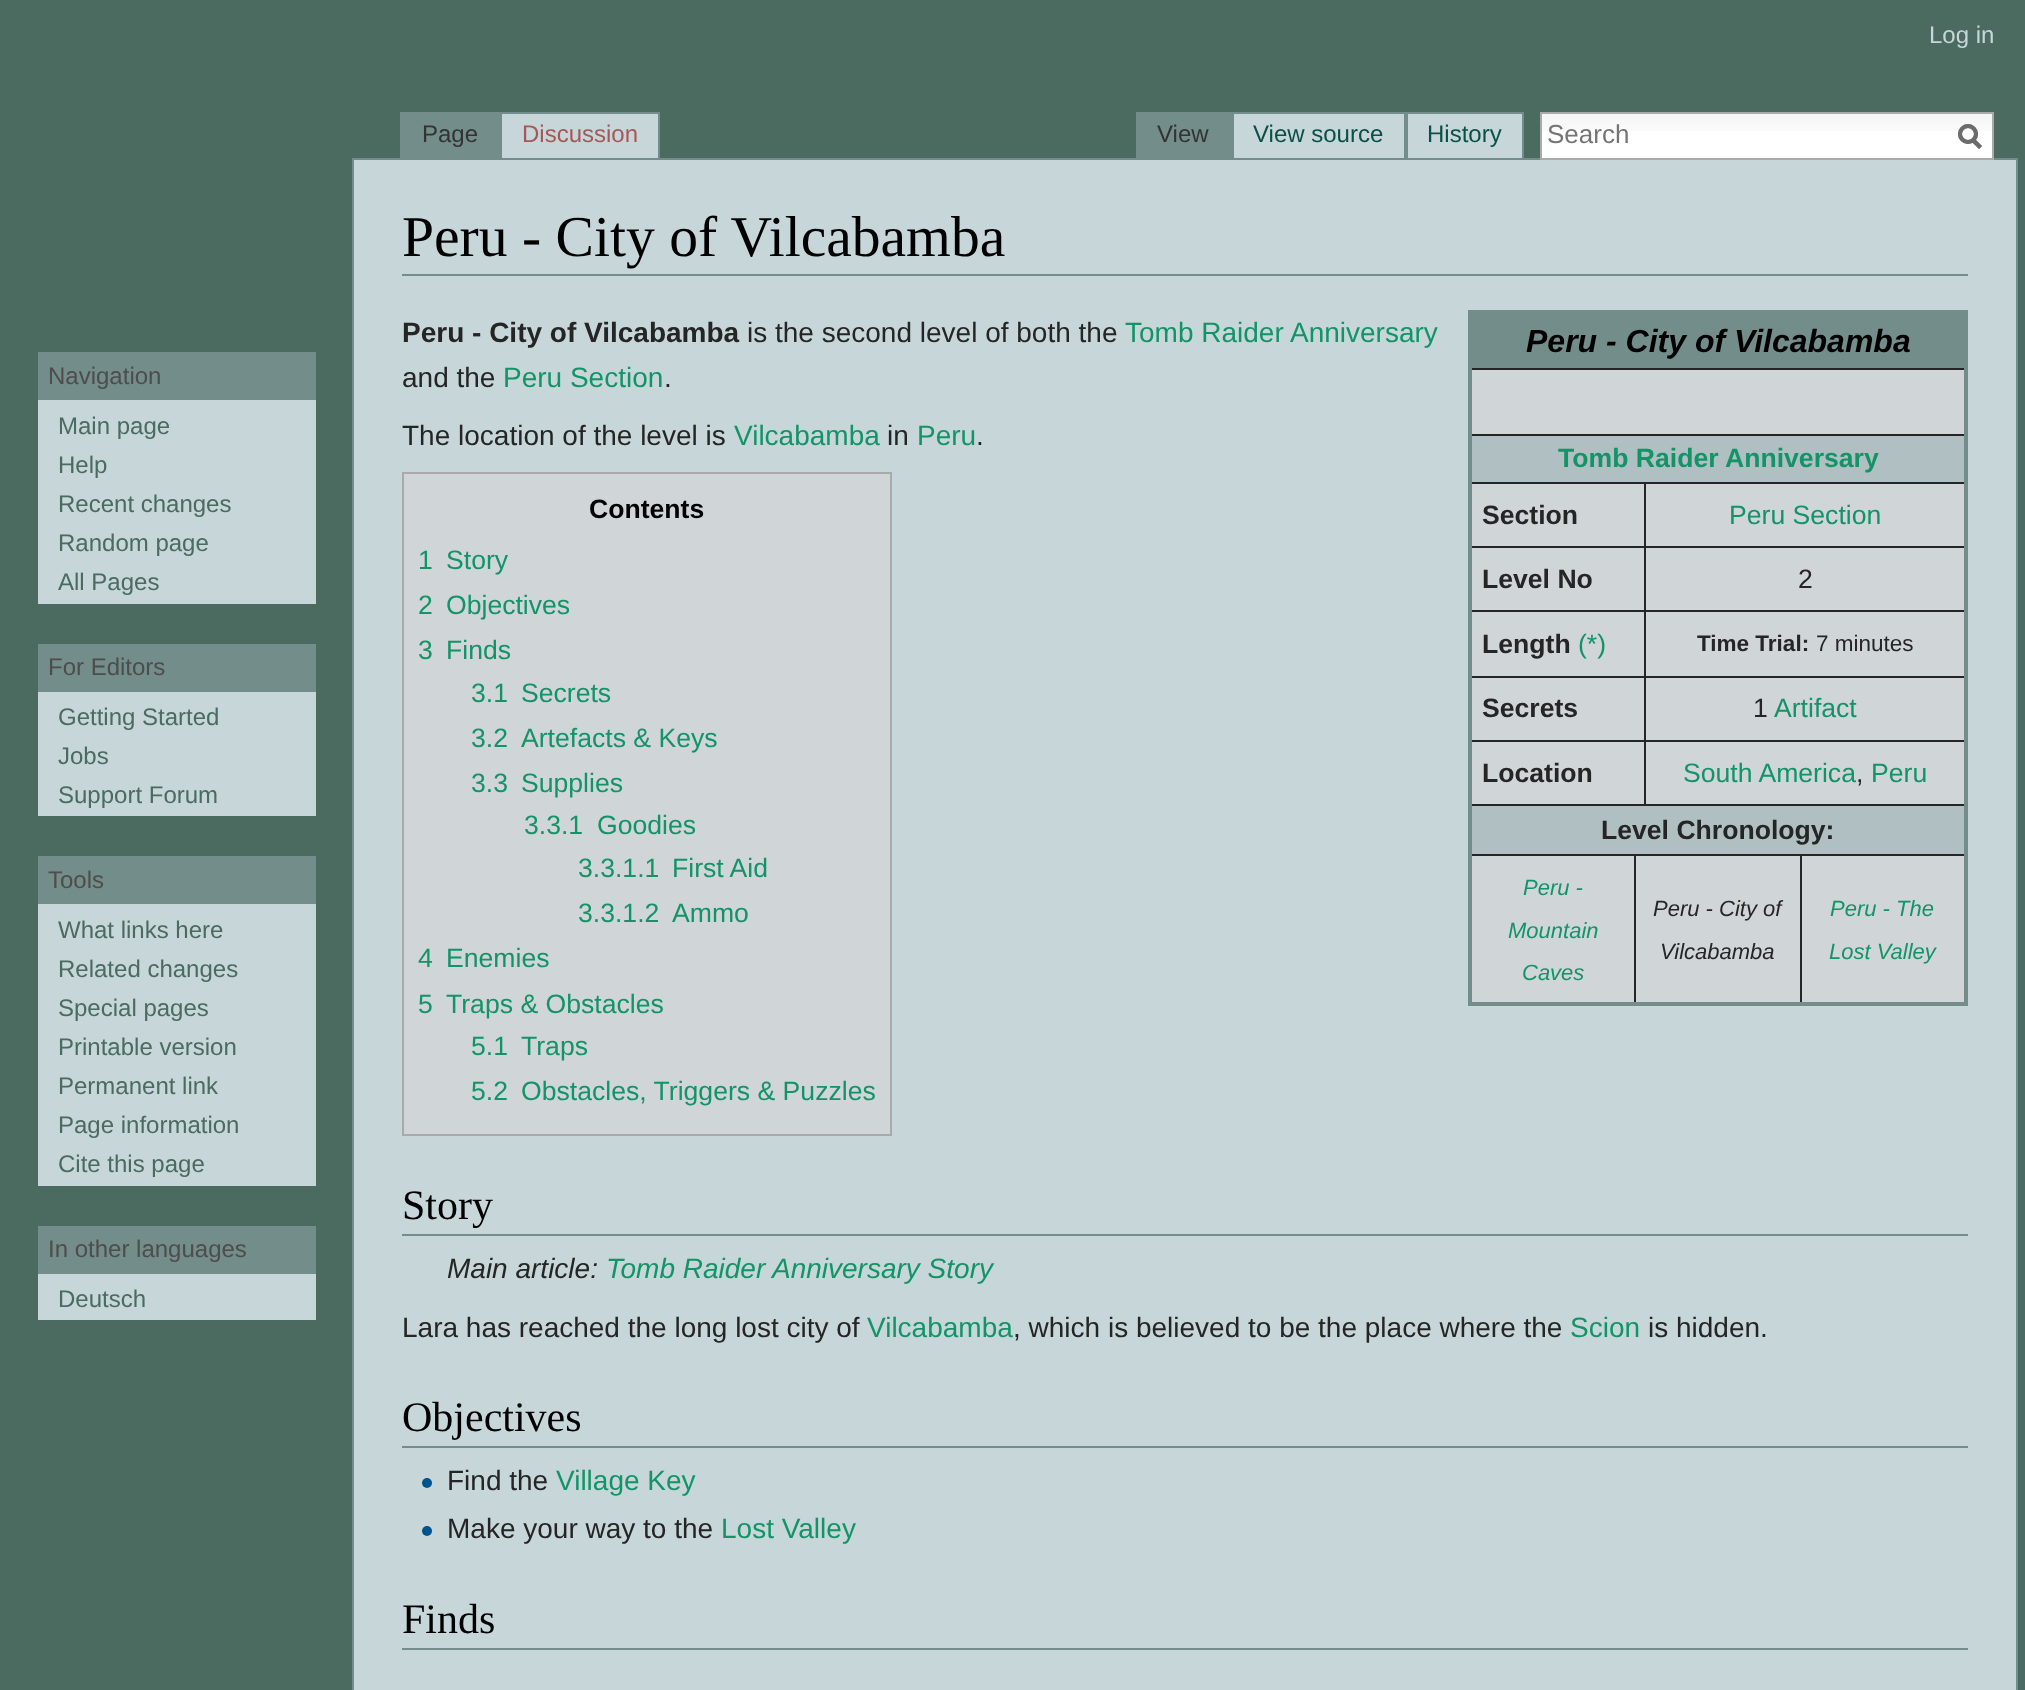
(async () => {
    const canvas = document.querySelector("canvas");
    canvas.width = 2025;
    canvas.height = 1690;
    const context = canvas.getContext("2d");
    context.miterLimit = 4;
    context.fontKerning = "normal";
    function write(s, x, y, font, color) {
        context.font = font;
        context.fillStyle = color;
        context.fillText(s, x, y);
    }
    function block(x, y, w, h, color) {
        context.fillStyle = color;
        context.fillRect(x, y, w, h);
    }
    async function photo(src, x, y, w, h) {
        const img = new Image();
        img.src = src;
        await img.decode();
        context.drawImage(img, x, y, w, h);
    }

    block(0, 0, 2025, 1690, "rgb(75, 107, 96)");
    write("Log in", 1929, 43, "24px Liberation Sans", "rgb(198, 214, 217)");
    block(400, 112, 100, 46, "rgb(115, 141, 138)");
    write("Page", 422, 142, "24px Liberation Sans", "rgb(51, 51, 51)");
    context.fillStyle = "rgb(198, 214, 217)";
    context.beginPath();
    context.rect(353, 159, 1664, 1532);
    context.fill();
    context.strokeStyle = "rgb(115, 141, 138)";
    context.lineWidth = 2;
    context.stroke();
    context.beginPath();
    context.rect(501, 113, 158, 46);
    context.fill();
    context.stroke();
    write("Discussion", 522, 142, "24px Liberation Sans", "rgb(165, 88, 88)");
    block(1136, 112, 96, 46, "rgb(115, 141, 138)");
    write("View", 1157, 142, "24px Liberation Sans", "rgb(51, 51, 51)");
    context.fillStyle = "rgb(198, 214, 217)";
    context.beginPath();
    context.rect(1233, 113, 172, 46);
    context.fill();
    context.stroke();
    write("View source", 1253, 142, "24px Liberation Sans", "rgb(11, 80, 72)");
    context.fillStyle = "rgb(198, 214, 217)";
    context.beginPath();
    context.rect(1407, 113, 116, 46);
    context.fill();
    context.stroke();
    write("History", 1427, 142, "24px Liberation Sans", "rgb(11, 80, 72)");
    block(1542, 131, 450, 27, "rgb(255, 255, 255)");
    await photo("media/1.png", 1542, 114, 450, 17);
    context.strokeStyle = "rgb(170, 170, 170)";
    context.strokeRect(1541, 113, 452, 46);
    write("Search", 1547, 143, "26px Liberation Sans", "rgb(117, 117, 117)");
    context.beginPath();
    context.moveTo(1980.5, 147.5);
    context.lineTo(1972.5, 139.5);
    context.strokeStyle = "rgb(108, 108, 108)";
    context.lineWidth = 4;
    context.stroke();
    context.beginPath();
    context.arc(1968, 134, 8, 0, Math.PI * 2);
    context.stroke();
    context.beginPath();
    context.moveTo(1980.5, 147.5);
    context.lineTo(1972.5, 139.5);
    context.stroke();
    context.beginPath();
    context.arc(1968, 134, 8, 0, Math.PI * 2);
    context.stroke();
    block(38, 400, 278, 204, "rgb(198, 214, 217)");
    block(38, 352, 278, 48, "rgb(115, 141, 138)");
    write("Navigation", 48, 384, "24px Liberation Sans", "rgb(77, 77, 77)");
    write("Main page", 58, 434, "24px Liberation Sans", "rgb(75, 107, 96)");
    write("Help", 58, 473, "24px Liberation Sans", "rgb(75, 107, 96)");
    write("Recent changes", 58, 512, "24px Liberation Sans", "rgb(75, 107, 96)");
    write("Random page", 58, 551, "24px Liberation Sans", "rgb(75, 107, 96)");
    write("All Pages", 58, 590, "24px Liberation Sans", "rgb(75, 107, 96)");
    block(38, 692, 278, 124, "rgb(198, 214, 217)");
    block(38, 644, 278, 48, "rgb(115, 141, 138)");
    write("For Editors", 48, 675, "24px Liberation Sans", "rgb(77, 77, 77)");
    write("Getting Started", 58, 725, "24px Liberation Sans", "rgb(75, 107, 96)");
    write("Jobs", 58, 764, "24px Liberation Sans", "rgb(75, 107, 96)");
    write("Support Forum", 58, 803, "24px Liberation Sans", "rgb(75, 107, 96)");
    block(38, 904, 278, 282, "rgb(198, 214, 217)");
    block(38, 856, 278, 48, "rgb(115, 141, 138)");
    write("Tools", 48, 888, "24px Liberation Sans", "rgb(77, 77, 77)");
    write("What links here", 58, 938, "24px Liberation Sans", "rgb(75, 107, 96)");
    write("Related changes", 58, 977, "24px Liberation Sans", "rgb(75, 107, 96)");
    write("Special pages", 58, 1016, "24px Liberation Sans", "rgb(75, 107, 96)");
    write("Printable version", 58, 1055, "24px Liberation Sans", "rgb(75, 107, 96)");
    write("Permanent link", 58, 1094, "24px Liberation Sans", "rgb(75, 107, 96)");
    write("Page information", 58, 1133, "24px Liberation Sans", "rgb(75, 107, 96)");
    write("Cite this page", 58, 1172, "24px Liberation Sans", "rgb(75, 107, 96)");
    block(38, 1274, 278, 46, "rgb(198, 214, 217)");
    block(38, 1226, 278, 48, "rgb(115, 141, 138)");
    write("In other languages", 48, 1257, "24px Liberation Sans", "rgb(77, 77, 77)");
    write("Deutsch", 58, 1307, "24px Liberation Sans", "rgb(75, 107, 96)");
    block(402, 274, 1566, 2, "rgb(115, 141, 138)");
    write("Peru - City of Vilcabamba", 402, 256, "57.6px Liberation Serif", "rgb(0, 0, 0)");
    write("Peru - City of Vilcabamba", 402, 342, "bold 28px Liberation Sans", "rgb(37, 37, 37)");
    write("is the second level of both the", 747, 342, "28px Liberation Sans", "rgb(37, 37, 37)");
    write("Tomb Raider Anniversary", 1125, 342, "28px Liberation Sans", "rgb(19, 148, 103)");
    write("and the", 402, 387, "28px Liberation Sans", "rgb(37, 37, 37)");
    write("Peru Section", 503, 387, "28px Liberation Sans", "rgb(19, 148, 103)");
    write(".", 664, 387, "28px Liberation Sans", "rgb(37, 37, 37)");
    block(1472, 370, 492, 632, "rgb(208, 213, 216)");
    block(1468, 310, 500, 4, "rgb(115, 141, 138)");
    block(1470, 368, 498, 2, "rgb(37, 37, 37)");
    block(1470, 434, 498, 2, "rgb(37, 37, 37)");
    block(1644, 482, 324, 2, "rgb(37, 37, 37)");
    block(1644, 546, 324, 2, "rgb(37, 37, 37)");
    block(1644, 610, 324, 2, "rgb(37, 37, 37)");
    block(1644, 676, 324, 2, "rgb(37, 37, 37)");
    block(1644, 740, 324, 2, "rgb(37, 37, 37)");
    block(1644, 804, 324, 2, "rgb(37, 37, 37)");
    block(1800, 854, 168, 2, "rgb(37, 37, 37)");
    block(1964, 310, 4, 696, "rgb(115, 141, 138)");
    block(1800, 854, 2, 152, "rgb(37, 37, 37)");
    block(1634, 854, 168, 2, "rgb(37, 37, 37)");
    block(1634, 854, 2, 152, "rgb(37, 37, 37)");
    block(1468, 1002, 500, 4, "rgb(115, 141, 138)");
    block(1644, 740, 2, 66, "rgb(37, 37, 37)");
    block(1470, 740, 176, 2, "rgb(37, 37, 37)");
    block(1644, 676, 2, 66, "rgb(37, 37, 37)");
    block(1470, 676, 176, 2, "rgb(37, 37, 37)");
    block(1644, 610, 2, 68, "rgb(37, 37, 37)");
    block(1470, 610, 176, 2, "rgb(37, 37, 37)");
    block(1644, 546, 2, 66, "rgb(37, 37, 37)");
    block(1470, 546, 176, 2, "rgb(37, 37, 37)");
    block(1644, 482, 2, 66, "rgb(37, 37, 37)");
    block(1470, 482, 176, 2, "rgb(37, 37, 37)");
    block(1470, 804, 176, 2, "rgb(37, 37, 37)");
    block(1470, 854, 166, 2, "rgb(37, 37, 37)");
    block(1468, 310, 4, 696, "rgb(115, 141, 138)");
    block(1472, 314, 492, 54, "rgb(115, 141, 138)");
    write("Peru - City of Vilcabamba", 1526, 352, "italic bold 32px Liberation Sans", "rgb(0, 0, 0)");
    block(1472, 436, 492, 46, "rgb(176, 191, 194)");
    write("Tomb Raider Anniversary", 1558, 467, "bold 26.6px Liberation Sans", "rgb(19, 148, 103)");
    write("Section", 1482, 524, "bold 26.6px Liberation Sans", "rgb(37, 37, 37)");
    write("Peru Section", 1729, 524, "26.6px Liberation Sans", "rgb(19, 148, 103)");
    write("Level No", 1482, 588, "bold 26.6px Liberation Sans", "rgb(37, 37, 37)");
    write("2", 1798, 588, "26.6px Liberation Sans", "rgb(37, 37, 37)");
    write("Length", 1482, 653, "bold 26.6px Liberation Sans", "rgb(37, 37, 37)");
    write("(*)", 1578, 653, "26.6px Liberation Sans", "rgb(19, 148, 103)");
    write("Time Trial:", 1697, 651, "bold 22.5px Liberation Sans", "rgb(37, 37, 37)");
    write("7 minutes", 1816, 651, "22.5px Liberation Sans", "rgb(37, 37, 37)");
    write("Secrets", 1482, 717, "bold 26.6px Liberation Sans", "rgb(37, 37, 37)");
    write("1", 1753, 717, "26.6px Liberation Sans", "rgb(37, 37, 37)");
    write("Artifact", 1774, 717, "26.6px Liberation Sans", "rgb(19, 148, 103)");
    write("Location", 1482, 782, "bold 26.6px Liberation Sans", "rgb(37, 37, 37)");
    write("South America", 1683, 782, "26.6px Liberation Sans", "rgb(19, 148, 103)");
    write(",", 1856, 782, "26.6px Liberation Sans", "rgb(37, 37, 37)");
    write("Peru", 1871, 782, "26.6px Liberation Sans", "rgb(19, 148, 103)");
    block(1472, 806, 492, 48, "rgb(176, 191, 194)");
    write("Level Chronology:", 1601, 839, "bold 26.6px Liberation Sans", "rgb(37, 37, 37)");
    write("Peru -", 1523, 895, "italic 22px Liberation Sans", "rgb(19, 148, 103)");
    write("Mountain", 1508, 938, "italic 22px Liberation Sans", "rgb(19, 148, 103)");
    write("Caves", 1522, 980, "italic 22px Liberation Sans", "rgb(19, 148, 103)");
    write("Peru - City of", 1653, 916, "italic 22px Liberation Sans", "rgb(37, 37, 37)");
    write("Vilcabamba", 1660, 959, "italic 22px Liberation Sans", "rgb(37, 37, 37)");
    write("Peru - The", 1830, 916, "italic 22px Liberation Sans", "rgb(19, 148, 103)");
    write("Lost Valley", 1829, 959, "italic 22px Liberation Sans", "rgb(19, 148, 103)");
    write("The location of the level is", 402, 445, "28px Liberation Sans", "rgb(37, 37, 37)");
    write("Vilcabamba", 734, 445, "28px Liberation Sans", "rgb(19, 148, 103)");
    write("in", 887, 445, "28px Liberation Sans", "rgb(37, 37, 37)");
    write("Peru", 917, 445, "28px Liberation Sans", "rgb(19, 148, 103)");
    write(".", 976, 445, "28px Liberation Sans", "rgb(37, 37, 37)");
    context.fillStyle = "rgb(208, 213, 216)";
    context.beginPath();
    context.rect(403, 473, 488, 662);
    context.fill();
    context.strokeStyle = "rgb(170, 170, 170)";
    context.lineWidth = 2;
    context.stroke();
    write("Contents", 589, 518, "bold 26.6px Liberation Sans", "rgb(0, 0, 0)");
    write("1", 418, 569, "26.6px Liberation Sans", "rgb(19, 148, 103)");
    write("Story", 446, 569, "26.6px Liberation Sans", "rgb(19, 148, 103)");
    write("2", 418, 614, "26.6px Liberation Sans", "rgb(19, 148, 103)");
    write("Objectives", 446, 614, "26.6px Liberation Sans", "rgb(19, 148, 103)");
    write("3", 418, 659, "26.6px Liberation Sans", "rgb(19, 148, 103)");
    write("Finds", 446, 659, "26.6px Liberation Sans", "rgb(19, 148, 103)");
    write("3.1", 471, 702, "26.6px Liberation Sans", "rgb(19, 148, 103)");
    write("Secrets", 521, 702, "26.6px Liberation Sans", "rgb(19, 148, 103)");
    write("3.2", 471, 747, "26.6px Liberation Sans", "rgb(19, 148, 103)");
    write("Artefacts & Keys", 521, 747, "26.6px Liberation Sans", "rgb(19, 148, 103)");
    write("3.3", 471, 792, "26.6px Liberation Sans", "rgb(19, 148, 103)");
    write("Supplies", 521, 792, "26.6px Liberation Sans", "rgb(19, 148, 103)");
    write("3.3.1", 524, 834, "26.6px Liberation Sans", "rgb(19, 148, 103)");
    write("Goodies", 597, 834, "26.6px Liberation Sans", "rgb(19, 148, 103)");
    write("3.3.1.1", 578, 877, "26.6px Liberation Sans", "rgb(19, 148, 103)");
    write("First Aid", 672, 877, "26.6px Liberation Sans", "rgb(19, 148, 103)");
    write("3.3.1.2", 578, 922, "26.6px Liberation Sans", "rgb(19, 148, 103)");
    write("Ammo", 672, 922, "26.6px Liberation Sans", "rgb(19, 148, 103)");
    write("4", 418, 967, "26.6px Liberation Sans", "rgb(19, 148, 103)");
    write("Enemies", 446, 967, "26.6px Liberation Sans", "rgb(19, 148, 103)");
    write("5", 418, 1013, "26.6px Liberation Sans", "rgb(19, 148, 103)");
    write("Traps & Obstacles", 446, 1013, "26.6px Liberation Sans", "rgb(19, 148, 103)");
    write("5.1", 471, 1055, "26.6px Liberation Sans", "rgb(19, 148, 103)");
    write("Traps", 521, 1055, "26.6px Liberation Sans", "rgb(19, 148, 103)");
    write("5.2", 471, 1100, "26.6px Liberation Sans", "rgb(19, 148, 103)");
    write("Obstacles, Triggers & Puzzles", 521, 1100, "26.6px Liberation Sans", "rgb(19, 148, 103)");
    block(402, 1234, 1566, 2, "rgb(115, 141, 138)");
    write("Story", 402, 1219, "42px Liberation Serif", "rgb(0, 0, 0)");
    write("Main article:", 447, 1278, "italic 28px Liberation Sans", "rgb(37, 37, 37)");
    write("Tomb Raider Anniversary Story", 606, 1278, "italic 28px Liberation Sans", "rgb(19, 148, 103)");
    write("Lara has reached the long lost city of", 402, 1337, "28px Liberation Sans", "rgb(37, 37, 37)");
    write("Vilcabamba", 867, 1337, "28px Liberation Sans", "rgb(19, 148, 103)");
    write(", which is believed to be the place where the", 1013, 1337, "28px Liberation Sans", "rgb(37, 37, 37)");
    write("Scion", 1570, 1337, "28px Liberation Sans", "rgb(19, 148, 103)");
    write("is hidden.", 1648, 1337, "28px Liberation Sans", "rgb(37, 37, 37)");
    block(402, 1446, 1566, 2, "rgb(115, 141, 138)");
    write("Objectives", 402, 1431, "42px Liberation Serif", "rgb(0, 0, 0)");
    await photo("media/2.png", 422, 1478, 10, 10);
    write("Find the", 447, 1490, "28px Liberation Sans", "rgb(37, 37, 37)");
    write("Village Key", 556, 1490, "28px Liberation Sans", "rgb(19, 148, 103)");
    await photo("media/2.png", 422, 1526, 10, 10);
    write("Make your way to the", 447, 1538, "28px Liberation Sans", "rgb(37, 37, 37)");
    write("Lost Valley", 721, 1538, "28px Liberation Sans", "rgb(19, 148, 103)");
    block(402, 1648, 1566, 2, "rgb(115, 141, 138)");
    write("Finds", 402, 1633, "42px Liberation Serif", "rgb(0, 0, 0)");
})();
